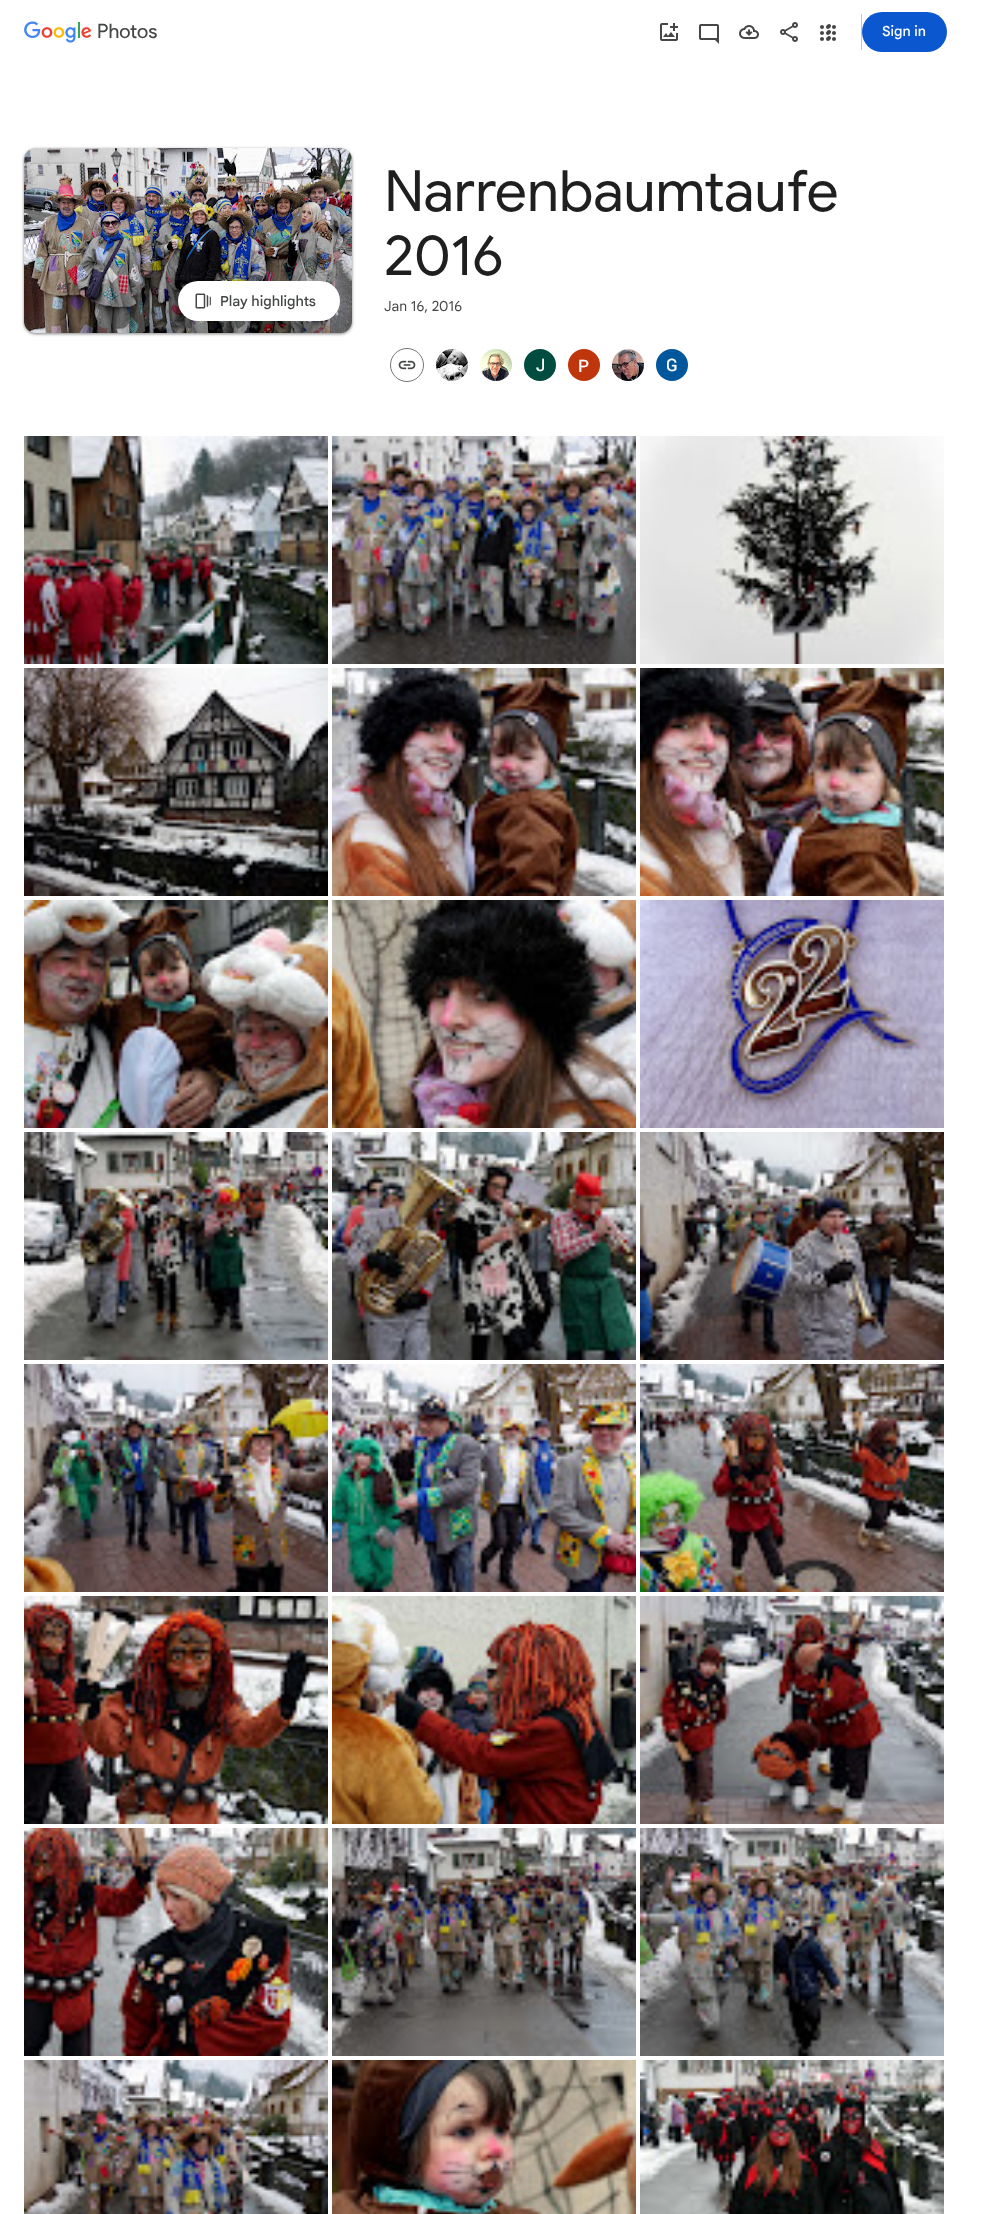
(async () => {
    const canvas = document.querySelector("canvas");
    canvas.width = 983;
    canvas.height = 2214;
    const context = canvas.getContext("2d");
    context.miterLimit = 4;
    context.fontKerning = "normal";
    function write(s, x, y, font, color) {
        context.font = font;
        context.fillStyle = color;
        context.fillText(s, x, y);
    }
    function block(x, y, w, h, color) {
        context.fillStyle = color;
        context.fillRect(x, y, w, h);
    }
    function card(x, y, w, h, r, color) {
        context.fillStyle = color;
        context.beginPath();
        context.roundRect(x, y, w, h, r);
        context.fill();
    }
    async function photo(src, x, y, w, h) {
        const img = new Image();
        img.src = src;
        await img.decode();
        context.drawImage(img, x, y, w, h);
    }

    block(0, 0, 983, 2214, "rgb(255, 255, 255)");
    await photo("media/1.png", 24, 21, 68, 22);
    write("Photos", 97, 38, "20px Product Sans", "rgb(68, 71, 70)");
    await photo("media/2.png", 660, 23, 18, 18);
    await photo("media/3.png", 699, 24, 20, 20);
    await photo("media/4.png", 739, 25, 20, 14);
    await photo("media/5.png", 780, 22, 18, 20);
    await photo("media/6.png", 827, 24, 4, 16);
    block(861, 14, 1, 36, "rgb(196, 199, 197)");
    context.fillStyle = "rgba(0, 0, 0, 0.15)";
    context.filter = "blur(1.5px)";
    context.beginPath();
    context.roundRect(23, 148, 330, 187, 13);
    context.fill();
    context.filter = "none";
    context.fillStyle = "rgba(0, 0, 0, 0.3)";
    context.filter = "blur(1px)";
    context.beginPath();
    context.roundRect(24, 149, 328, 185, 12);
    context.fill();
    context.filter = "none";
    await photo("media/7.png", 24, 148, 328, 185);
    card(178, 281, 162, 40, 20, "rgb(255, 255, 255)");
    await photo("media/8.png", 195, 293, 16, 16);
    write("Play highlights", 220, 306, "500 14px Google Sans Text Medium", "rgb(68, 71, 70)");
    write("Narrenbaumtaufe", 384, 211, "57px Google Sans", "rgb(31, 31, 31)");
    write("2016", 384, 275, "57px Google Sans", "rgb(31, 31, 31)");
    write("Jan 16, 2016", 384, 311, "14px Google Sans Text", "rgb(68, 71, 70)");
    context.beginPath();
    context.arc(407, 365, 16.5, 0, Math.PI * 2);
    context.strokeStyle = "rgb(116, 119, 117)";
    context.stroke();
    await photo("media/9.png", 398, 360, 18, 10);
    await photo("media/10.png", 436, 349, 32, 32);
    await photo("media/11.png", 480, 349, 32, 32);
    await photo("media/12.png", 524, 349, 32, 32);
    await photo("media/13.png", 568, 349, 32, 32);
    await photo("media/14.png", 612, 349, 32, 32);
    await photo("media/15.png", 656, 349, 32, 32);
    await photo("media/16.png", 24, 436, 304, 228);
    await photo("media/17.png", 332, 436, 304, 228);
    await photo("media/18.png", 640, 436, 304, 228);
    await photo("media/19.png", 24, 668, 304, 228);
    await photo("media/20.png", 332, 668, 304, 228);
    await photo("media/21.png", 640, 668, 304, 228);
    await photo("media/22.png", 24, 900, 304, 228);
    await photo("media/23.png", 332, 900, 304, 228);
    await photo("media/24.png", 640, 900, 304, 228);
    await photo("media/25.png", 24, 1132, 304, 228);
    await photo("media/26.png", 332, 1132, 304, 228);
    await photo("media/27.png", 640, 1132, 304, 228);
    await photo("media/28.png", 24, 1364, 304, 228);
    await photo("media/29.png", 332, 1364, 304, 228);
    await photo("media/30.png", 640, 1364, 304, 228);
    await photo("media/31.png", 24, 1596, 304, 228);
    await photo("media/32.png", 332, 1596, 304, 228);
    await photo("media/33.png", 640, 1596, 304, 228);
    await photo("media/34.png", 24, 1828, 304, 228);
    await photo("media/35.png", 332, 1828, 304, 228);
    await photo("media/36.png", 640, 1828, 304, 228);
    await photo("media/37.png", 24, 2060, 304, 154);
    await photo("media/38.png", 332, 2060, 304, 154);
    await photo("media/39.png", 640, 2060, 304, 154);
    await photo("media/40.png", 820, 25, 16, 16);
    card(862, 12, 85, 40, 20, "rgb(11, 87, 208)");
    write("Sign in", 882, 36, "500 14px Google Sans Text Medium", "rgb(255, 255, 255)");
})();
